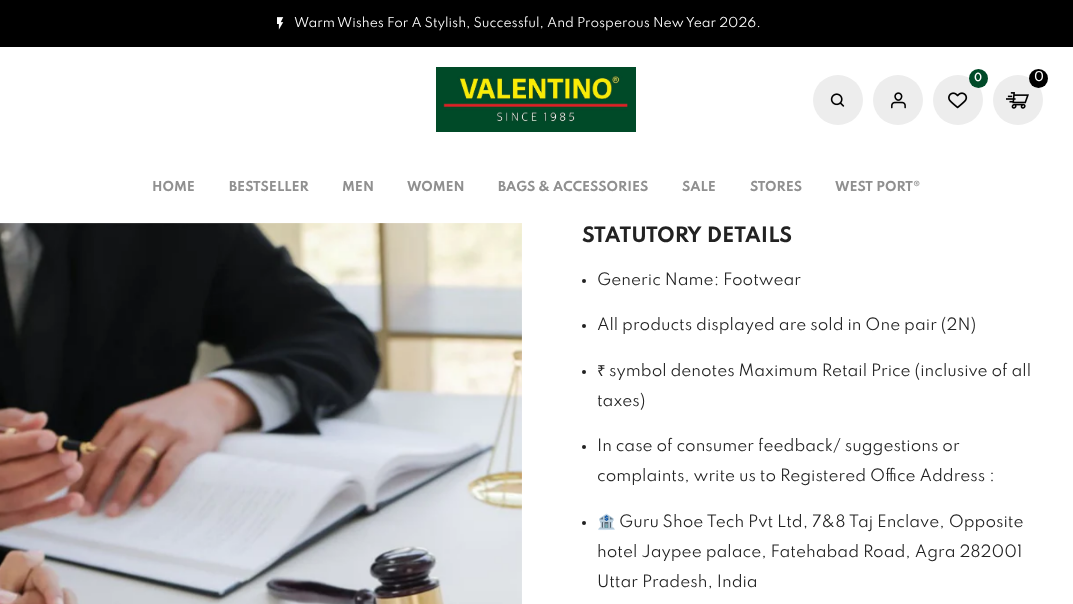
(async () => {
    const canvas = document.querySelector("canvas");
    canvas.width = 1073;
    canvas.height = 604;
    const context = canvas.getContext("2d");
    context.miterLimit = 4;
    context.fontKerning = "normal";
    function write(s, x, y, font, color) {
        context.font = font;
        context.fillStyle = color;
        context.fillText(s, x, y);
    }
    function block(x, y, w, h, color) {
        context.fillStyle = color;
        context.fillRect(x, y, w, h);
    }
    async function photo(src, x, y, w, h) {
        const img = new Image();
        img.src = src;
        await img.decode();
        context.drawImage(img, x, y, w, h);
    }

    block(0, 0, 1073, 604, "rgb(255, 255, 255)");
    block(0, 0, 1073, 47, "rgb(0, 0, 0)");
    await photo("media/1.png", 277, 17, 7, 13);
    write("Warm Wishes For A Stylish, Successful, And Prosperous New Year 2026.", 294, 27, "12.25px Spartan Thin", "rgb(255, 255, 255)");
    await photo("media/2.png", 436, 67, 200, 65);
    context.fillStyle = "rgb(237, 237, 237)";
    context.beginPath();
    context.arc(838, 100, 25, 0, Math.PI * 2);
    context.fill();
    await photo("media/3.png", 830, 93, 15, 14);
    context.beginPath();
    context.arc(898, 100, 25, 0, Math.PI * 2);
    context.fill();
    await photo("media/4.png", 891, 92, 15, 17);
    context.beginPath();
    context.arc(958, 100, 25, 0, Math.PI * 2);
    context.fill();
    context.fillStyle = "rgb(0, 74, 40)";
    context.beginPath();
    context.arc(978.5, 78.5, 9.5, 0, Math.PI * 2);
    context.fill();
    write("0", 974, 81, "600 10px Spartan Thin", "rgb(255, 255, 255)");
    await photo("media/5.png", 948, 92, 20, 17);
    context.fillStyle = "rgb(237, 237, 237)";
    context.beginPath();
    context.arc(1018, 100, 25, 0, Math.PI * 2);
    context.fill();
    context.fillStyle = "rgb(0, 0, 0)";
    context.beginPath();
    context.arc(1038.5, 78.5, 9.5, 0, Math.PI * 2);
    context.fill();
    write("0", 1034, 81, "500 12px Spartan Thin", "rgb(255, 255, 255)");
    await photo("media/6.png", 1006, 92, 23, 17);
    write("HOME", 152, 191, "bold 12.25px Spartan Thin", "rgb(144, 144, 144)");
    write("BESTSELLER", 229, 191, "bold 12.25px Spartan Thin", "rgb(144, 144, 144)");
    write("MEN", 342, 191, "bold 12.25px Spartan Thin", "rgb(144, 144, 144)");
    write("WOMEN", 407, 191, "bold 12.25px Spartan Thin", "rgb(144, 144, 144)");
    write("BAGS & ACCESSORIES", 498, 191, "bold 12.25px Spartan Thin", "rgb(144, 144, 144)");
    write("SALE", 682, 191, "bold 12.25px Spartan Thin", "rgb(144, 144, 144)");
    write("STORES", 750, 191, "bold 12.25px Spartan Thin", "rgb(144, 144, 144)");
    write("WEST PORT®", 835, 191, "bold 12.25px Spartan Thin", "rgb(144, 144, 144)");
    await photo("media/7.png", 0, 223, 522, 381);
    write("STATUTORY DETAILS", 582, 242, "bold 18.9px Spartan Thin", "rgb(34, 34, 34)");
    context.beginPath();
    context.arc(584, 281, 2, 0, Math.PI * 2);
    context.fill();
    write("Generic Name: Footwear", 597, 285, "15.1px Spartan Thin", "rgb(34, 34, 34)");
    context.beginPath();
    context.arc(584, 326, 2, 0, Math.PI * 2);
    context.fill();
    write("All products displayed are sold in One pair (2N)", 597, 330, "15.1px Spartan Thin", "rgb(34, 34, 34)");
    context.beginPath();
    context.arc(584, 372, 2, 0, Math.PI * 2);
    context.fill();
    write("₹", 597, 376, "15.1px Noto Sans", "rgb(34, 34, 34)");
    write("symbol denotes Maximum Retail Price (inclusive of all", 609, 376, "15.1px Spartan Thin", "rgb(34, 34, 34)");
    write("taxes)", 597, 406, "15.1px Spartan Thin", "rgb(34, 34, 34)");
    context.beginPath();
    context.arc(584, 447, 2, 0, Math.PI * 2);
    context.fill();
    write("In case of consumer feedback/ suggestions or", 597, 451, "15.1px Spartan Thin", "rgb(34, 34, 34)");
    write("complaints, write us to Registered Office Address :", 597, 481, "15.1px Spartan Thin", "rgb(34, 34, 34)");
    context.beginPath();
    context.arc(584, 523, 2, 0, Math.PI * 2);
    context.fill();
    write("🏦", 597, 527, "15.1px Noto Color Emoji", "rgb(34, 34, 34)");
    write("Guru Shoe Tech Pvt Ltd, 7&8 Taj Enclave, Opposite", 619, 527, "15.1px Spartan Thin", "rgb(34, 34, 34)");
    write("hotel Jaypee palace, Fatehabad Road, Agra 282001", 597, 557, "15.1px Spartan Thin", "rgb(34, 34, 34)");
    write("Uttar Pradesh, India", 597, 587, "15.1px Spartan Thin", "rgb(34, 34, 34)");
})();
